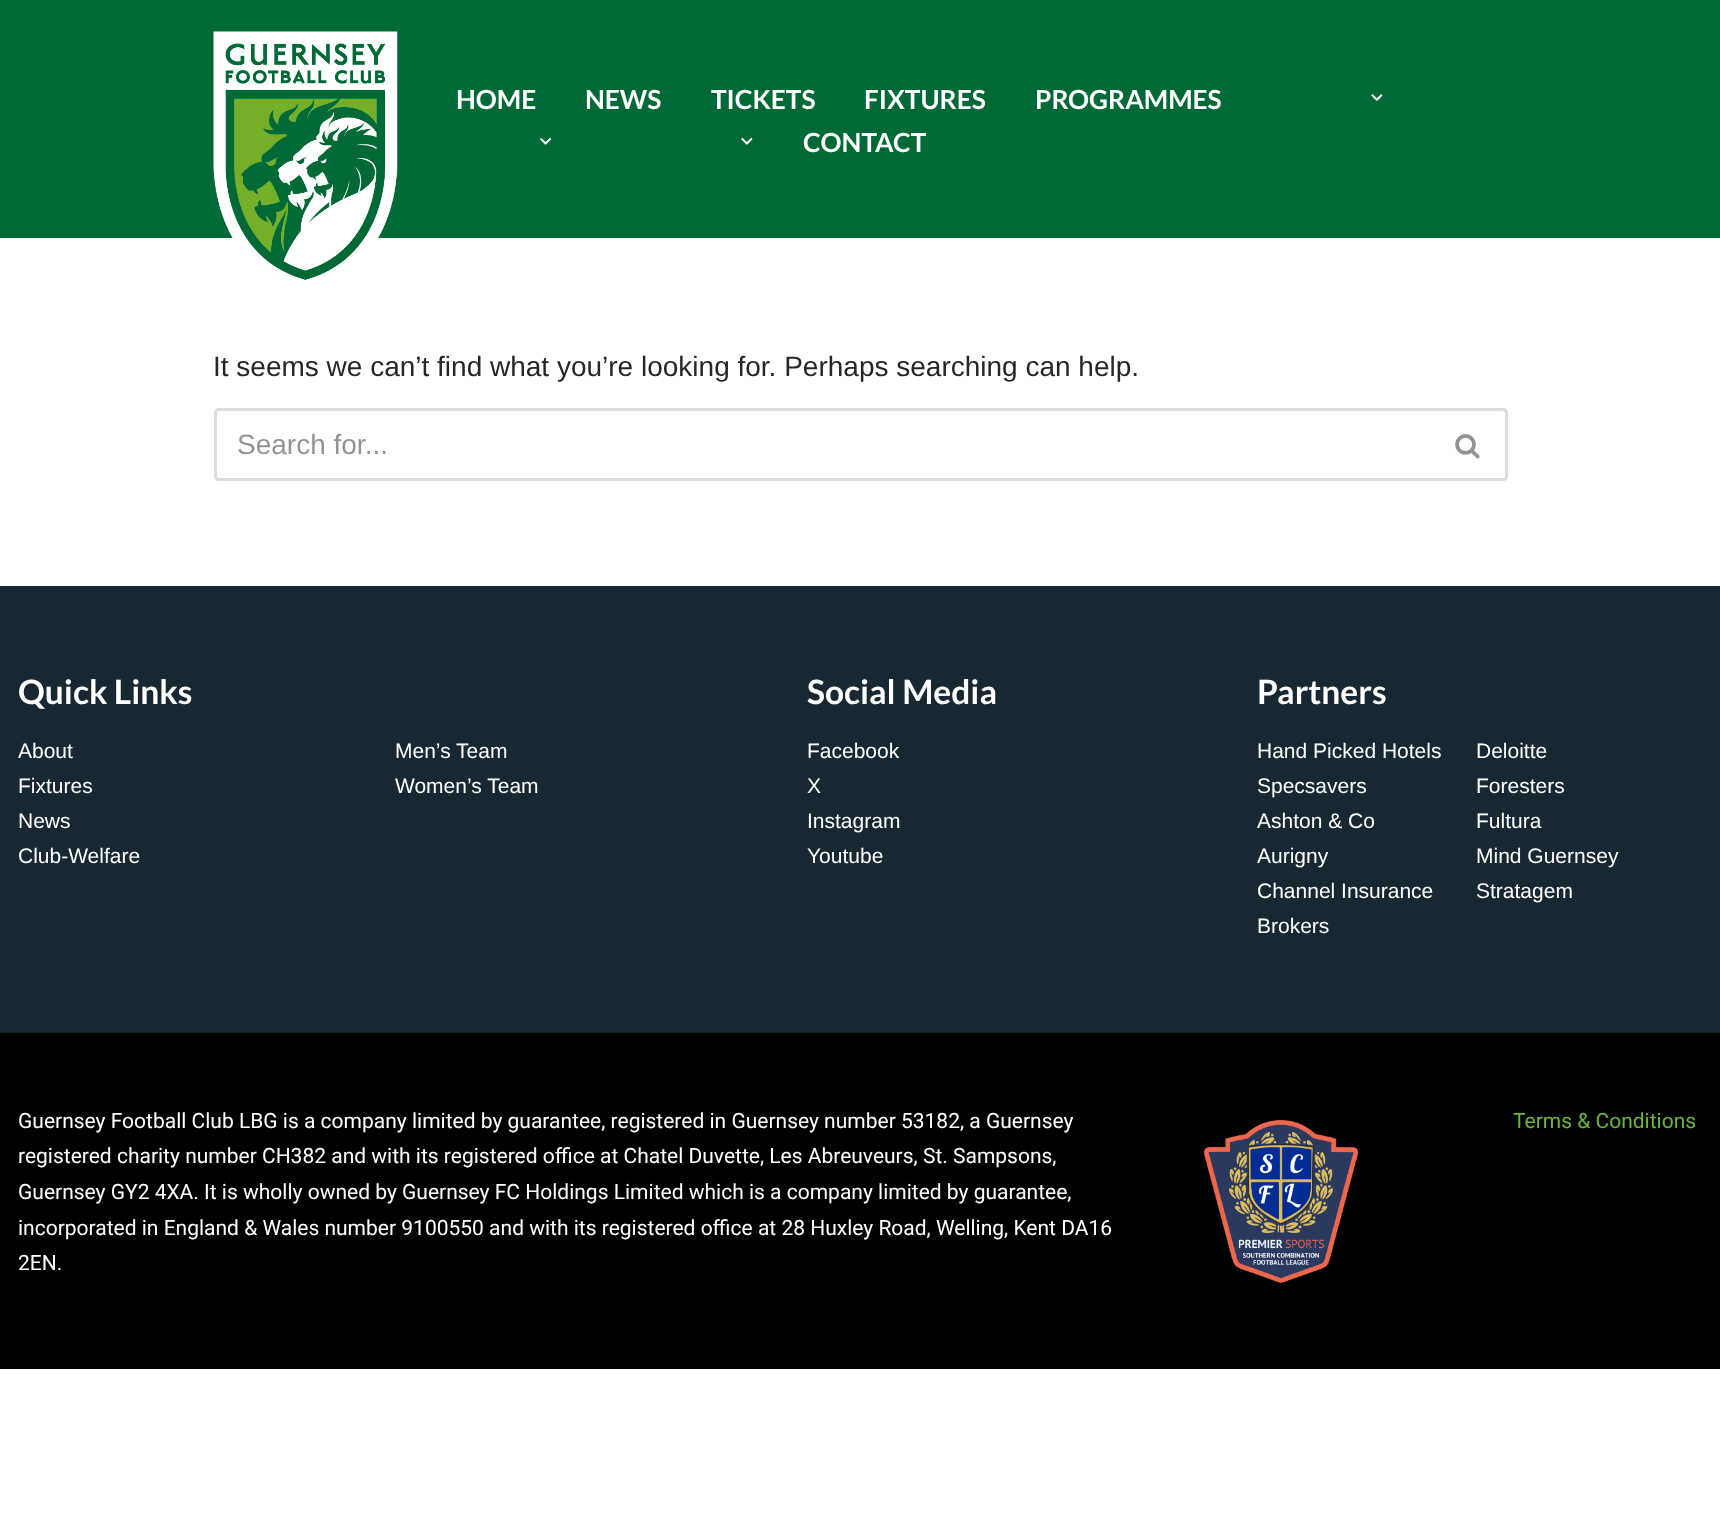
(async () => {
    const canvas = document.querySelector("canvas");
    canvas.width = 1720;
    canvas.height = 1513;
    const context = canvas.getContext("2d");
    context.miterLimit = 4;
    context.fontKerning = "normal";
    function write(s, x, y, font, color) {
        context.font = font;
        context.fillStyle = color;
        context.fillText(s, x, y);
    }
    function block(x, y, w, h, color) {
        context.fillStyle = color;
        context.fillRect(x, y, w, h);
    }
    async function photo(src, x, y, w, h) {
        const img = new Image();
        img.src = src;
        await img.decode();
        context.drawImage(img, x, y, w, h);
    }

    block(0, 0, 1720, 1513, "rgb(255, 255, 255)");
    block(0, 0, 1720, 238, "rgb(0, 105, 53)");
    await photo("media/1.png", 213, 31, 185, 249);
    write("HOME", 456, 109, "bold 26.25px Lato", "rgb(255, 255, 255)");
    write("NEWS", 585, 109, "bold 26.25px Lato", "rgb(255, 255, 255)");
    write("TICKETS", 711, 109, "bold 26.25px Lato", "rgb(255, 255, 255)");
    write("FIXTURES", 864, 109, "bold 26.25px Lato", "rgb(255, 255, 255)");
    write("PROGRAMMES", 1035, 109, "bold 26.25px Lato", "rgb(255, 255, 255)");
    await photo("media/2.png", 1371, 94, 12, 7);
    await photo("media/3.png", 540, 138, 11, 7);
    await photo("media/4.png", 741, 138, 12, 7);
    write("CONTACT", 803, 152, "bold 26.25px Lato", "rgb(255, 255, 255)");
    write("It seems we can’t find what you’re looking for. Perhaps searching can help.", 213, 376, "28px Liberation Sans", "rgb(39, 38, 38)");
    context.fillStyle = "rgb(221, 221, 221)";
    context.beginPath();
    context.moveTo(219, 408);
    context.lineTo(1430, 408);
    context.lineTo(1430, 481);
    context.lineTo(219, 481);
    context.bezierCurveTo(216, 481, 214, 479, 214, 476);
    context.lineTo(214, 413);
    context.bezierCurveTo(214, 410, 216, 408, 219, 408);
    context.closePath();
    context.moveTo(219, 411);
    context.lineTo(1430, 411);
    context.lineTo(1430, 478);
    context.lineTo(219, 478);
    context.bezierCurveTo(218, 478, 217, 477, 217, 476);
    context.lineTo(217, 413);
    context.bezierCurveTo(217, 412, 218, 411, 219, 411);
    context.closePath();
    context.fill("evenodd");
    write("Search for...", 237, 454, "28px Liberation Sans", "rgb(147, 147, 147)");
    context.fillStyle = "rgb(221, 221, 221)";
    context.beginPath();
    context.moveTo(1430, 408);
    context.lineTo(1503, 408);
    context.bezierCurveTo(1506, 408, 1508, 410, 1508, 413);
    context.lineTo(1508, 476);
    context.bezierCurveTo(1508, 479, 1506, 481, 1503, 481);
    context.lineTo(1430, 481);
    context.closePath();
    context.moveTo(1430, 411);
    context.lineTo(1503, 411);
    context.bezierCurveTo(1504, 411, 1505, 412, 1505, 413);
    context.lineTo(1505, 476);
    context.bezierCurveTo(1505, 477, 1504, 478, 1503, 478);
    context.lineTo(1430, 478);
    context.closePath();
    context.fill("evenodd");
    await photo("media/5.png", 1455, 434, 25, 25);
    block(0, 586, 1720, 447, "rgb(24, 40, 50)");
    write("Quick Links", 18, 704, "bold 33.5px Lato", "rgb(255, 255, 255)");
    write("About", 18, 758, "21px Liberation Sans", "rgb(255, 255, 255)");
    write("Fixtures", 18, 793, "21px Liberation Sans", "rgb(255, 255, 255)");
    write("News", 18, 828, "21px Liberation Sans", "rgb(255, 255, 255)");
    write("Club-Welfare", 18, 863, "21px Liberation Sans", "rgb(255, 255, 255)");
    write("Men’s Team", 395, 758, "21px Liberation Sans", "rgb(255, 255, 255)");
    write("Women’s Team", 395, 793, "21px Liberation Sans", "rgb(255, 255, 255)");
    write("Social Media", 807, 704, "bold 33.5px Lato", "rgb(255, 255, 255)");
    write("Facebook", 807, 758, "21px Liberation Sans", "rgb(255, 255, 255)");
    write("X", 807, 793, "21px Liberation Sans", "rgb(255, 255, 255)");
    write("Instagram", 807, 828, "21px Liberation Sans", "rgb(255, 255, 255)");
    write("Youtube", 807, 863, "21px Liberation Sans", "rgb(255, 255, 255)");
    write("Partners", 1257, 704, "bold 33.5px Lato", "rgb(255, 255, 255)");
    write("Hand Picked Hotels", 1257, 758, "21px Liberation Sans", "rgb(255, 255, 255)");
    write("Specsavers", 1257, 793, "21px Liberation Sans", "rgb(255, 255, 255)");
    write("Ashton & Co", 1257, 828, "21px Liberation Sans", "rgb(255, 255, 255)");
    write("Aurigny", 1257, 863, "21px Liberation Sans", "rgb(255, 255, 255)");
    write("Channel Insurance", 1257, 898, "21px Liberation Sans", "rgb(255, 255, 255)");
    write("Brokers", 1257, 933, "21px Liberation Sans", "rgb(255, 255, 255)");
    write("Deloitte", 1476, 758, "21px Liberation Sans", "rgb(255, 255, 255)");
    write("Foresters", 1476, 793, "21px Liberation Sans", "rgb(255, 255, 255)");
    write("Fultura", 1476, 828, "21px Liberation Sans", "rgb(255, 255, 255)");
    write("Mind Guernsey", 1476, 863, "21px Liberation Sans", "rgb(255, 255, 255)");
    write("Stratagem", 1476, 898, "21px Liberation Sans", "rgb(255, 255, 255)");
    block(0, 1033, 1720, 336, "rgb(0, 0, 0)");
    write("Guernsey Football Club LBG is a company limited by guarantee, registered in Guernsey number 53182, a Guernsey", 18, 1128, "21px Roboto", "rgb(255, 255, 255)");
    write("registered charity number CH382 and with its registered office at Chatel Duvette, Les Abreuveurs, St. Sampsons,", 18, 1163, "21px Roboto", "rgb(255, 255, 255)");
    write("Guernsey GY2 4XA. It is wholly owned by Guernsey FC Holdings Limited which is a company limited by guarantee,", 18, 1199, "21px Roboto", "rgb(255, 255, 255)");
    write("incorporated in England & Wales number 9100550 and with its registered office at 28 Huxley Road, Welling, Kent DA16", 18, 1235, "21px Roboto", "rgb(255, 255, 255)");
    write("2EN.", 18, 1270, "21px Roboto", "rgb(255, 255, 255)");
    await photo("media/6.png", 1204, 1120, 154, 163);
    write("Terms & Conditions", 1513, 1128, "21px Roboto", "rgb(109, 180, 63)");
})();
